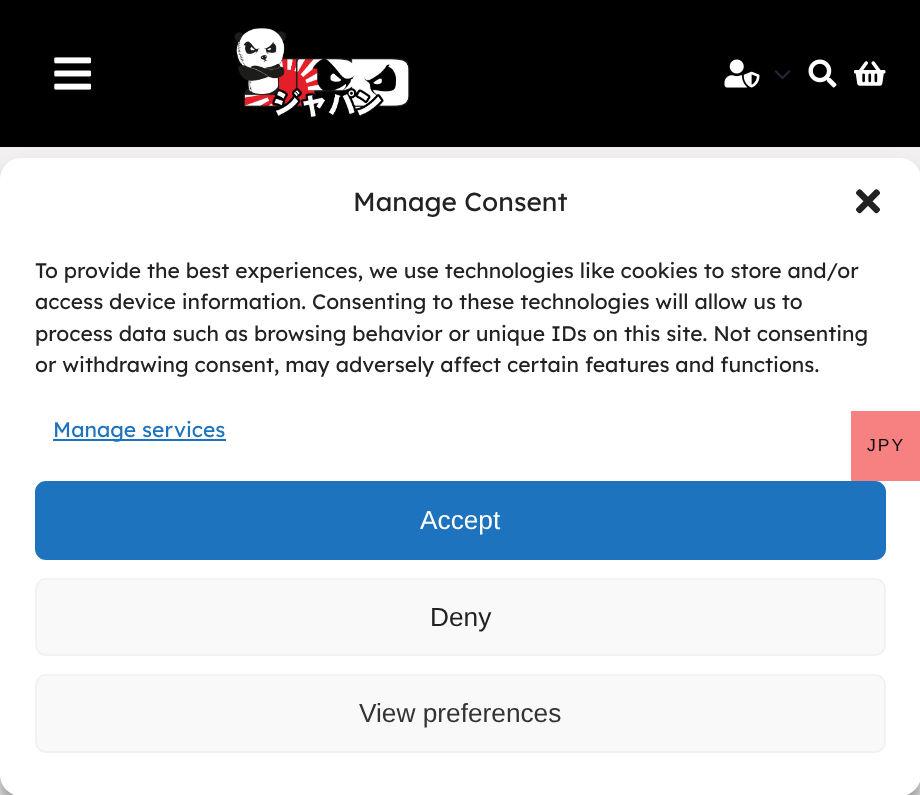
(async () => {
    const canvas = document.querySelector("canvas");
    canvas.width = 920;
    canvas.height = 795;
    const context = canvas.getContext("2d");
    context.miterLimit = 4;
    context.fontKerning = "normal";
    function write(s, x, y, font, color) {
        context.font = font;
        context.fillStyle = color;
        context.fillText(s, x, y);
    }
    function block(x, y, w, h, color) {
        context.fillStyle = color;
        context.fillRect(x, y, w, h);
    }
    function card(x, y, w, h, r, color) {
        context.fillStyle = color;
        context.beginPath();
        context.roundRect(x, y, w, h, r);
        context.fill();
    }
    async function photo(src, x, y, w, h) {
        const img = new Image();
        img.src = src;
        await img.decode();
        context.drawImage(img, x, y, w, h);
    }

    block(0, 0, 920, 795, "rgb(244, 242, 242)");
    block(0, 0, 920, 147, "rgb(0, 0, 0)");
    await photo("media/1.png", 54, 57, 37, 33);
    await photo("media/2.png", 234, 28, 176, 89);
    await photo("media/3.png", 724, 59, 36, 29);
    await photo("media/4.png", 774, 70, 17, 10);
    await photo("media/5.png", 808, 59, 29, 29);
    await photo("media/6.png", 854, 61, 32, 25);
    context.fillStyle = "rgba(0, 0, 0, 0.23)";
    context.filter = "blur(5px)";
    context.beginPath();
    context.roundRect(0, 168, 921, 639, 21);
    context.fill();
    context.filter = "none";
    context.fillStyle = "rgba(0, 0, 0, 0.19)";
    context.filter = "blur(17.5px)";
    context.beginPath();
    context.roundRect(0, 175, 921, 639, 21);
    context.fill();
    context.filter = "none";
    card(0, 158, 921, 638, 21, "rgb(255, 255, 255)");
    write("Manage Consent", 353, 211, "26.25px Lexend", "rgb(34, 34, 34)");
    await photo("media/7.png", 856, 189, 24, 25);
    write("To provide the best experiences, we use technologies like cookies to store and/or", 35, 278, "21px Lexend", "rgb(34, 34, 34)");
    write("access device information. Consenting to these technologies will allow us to", 35, 309, "21px Lexend", "rgb(34, 34, 34)");
    write("process data such as browsing behavior or unique IDs on this site. Not consenting", 35, 341, "21px Lexend", "rgb(34, 34, 34)");
    write("or withdrawing consent, may adversely affect certain features and functions.", 35, 372, "21px Lexend", "rgb(34, 34, 34)");
    block(53, 439, 173, 2, "rgb(30, 115, 190)");
    write("Manage services", 53, 437, "21px Lexend", "rgb(30, 115, 190)");
    context.beginPath();
    context.roundRect(36, 482, 849, 77, 10);
    context.fill();
    context.strokeStyle = "rgb(30, 115, 190)";
    context.lineWidth = 2;
    context.stroke();
    write("Accept", 420, 529, "26.25px Liberation Sans", "rgb(255, 255, 255)");
    context.fillStyle = "rgb(249, 249, 249)";
    context.beginPath();
    context.roundRect(36, 579, 849, 76, 10);
    context.fill();
    context.strokeStyle = "rgb(242, 242, 242)";
    context.stroke();
    write("Deny", 430, 626, "26.25px Liberation Sans", "rgb(34, 34, 34)");
    context.fillStyle = "rgb(249, 249, 249)";
    context.beginPath();
    context.roundRect(36, 675, 849, 77, 10);
    context.fill();
    context.stroke();
    write("View preferences", 359, 722, "26.25px Liberation Sans", "rgb(51, 51, 51)");
    block(851, 411, 69, 70, "rgb(247, 128, 128)");
    context.letterSpacing = "2px";
    write("JPY", 867, 451, "17.5px Liberation Sans", "rgb(12, 12, 12)");
})();
